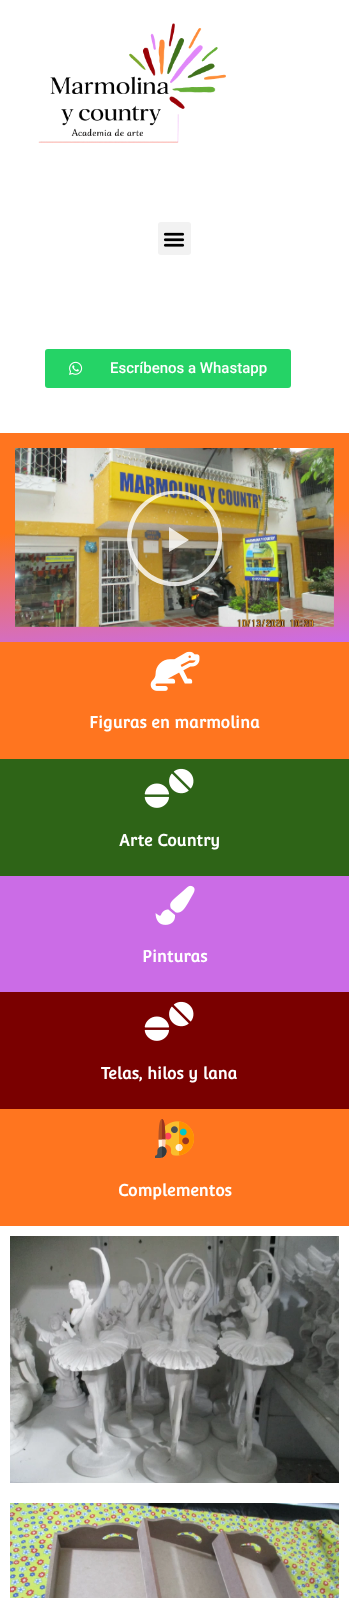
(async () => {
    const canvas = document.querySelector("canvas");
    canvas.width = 349;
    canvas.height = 1598;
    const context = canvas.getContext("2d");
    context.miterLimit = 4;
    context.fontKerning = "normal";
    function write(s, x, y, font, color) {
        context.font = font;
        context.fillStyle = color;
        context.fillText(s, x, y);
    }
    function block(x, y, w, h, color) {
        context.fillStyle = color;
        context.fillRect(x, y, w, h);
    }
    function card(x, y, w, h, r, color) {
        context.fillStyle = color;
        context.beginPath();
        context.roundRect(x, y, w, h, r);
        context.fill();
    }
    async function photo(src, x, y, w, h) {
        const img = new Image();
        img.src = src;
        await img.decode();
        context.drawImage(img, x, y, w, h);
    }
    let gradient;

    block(0, 0, 349, 1598, "rgb(255, 255, 255)");
    await photo("media/1.png", 38, 23, 188, 120);
    card(158, 222, 33, 33, 3, "rgb(242, 242, 242)");
    await photo("media/2.png", 163, 232, 22, 15);
    card(45, 349, 246, 39, 3, "rgb(37, 211, 102)");
    await photo("media/3.png", 69, 361, 14, 14);
    write("Escríbenos a Whastapp", 110, 373, "500 15px Roboto", "rgb(255, 255, 255)");
    gradient = context.createLinearGradient(166, 421, 183, 654);
    gradient.addColorStop(0.43, "rgb(255, 117, 31)");
    gradient.addColorStop(1, "rgb(203, 108, 230)");
    context.fillStyle = gradient;
    context.fillRect(0, 433, 349, 209);
    await photo("media/4.png", 15, 448, 319, 179);
    context.fillStyle = "rgba(255, 255, 255, 0.8)";
    context.beginPath();
    context.moveTo(209, 504);
    context.bezierCurveTo(201, 496, 191, 492, 180, 491);
    context.bezierCurveTo(135, 487, 110, 539, 141, 572);
    context.bezierCurveTo(172, 604, 226, 578, 222, 533);
    context.bezierCurveTo(221, 522, 217, 512, 209, 504);
    context.closePath();
    context.moveTo(206, 507);
    context.bezierCurveTo(233, 536, 213, 584, 173, 582);
    context.bezierCurveTo(163, 581, 153, 577, 146, 570);
    context.bezierCurveTo(104, 529, 163, 466, 206, 507);
    context.closePath();
    context.moveTo(169, 527);
    context.lineTo(169, 552);
    context.lineTo(189, 540);
    context.closePath();
    context.fill();
    block(0, 642, 349, 117, "rgb(255, 117, 31)");
    await photo("media/5.png", 150, 651, 50, 40);
    write("Figuras en marmolina", 89, 728, "bold 16px Convergence", "rgb(255, 255, 255)");
    block(0, 759, 349, 117, "rgb(46, 100, 23)");
    await photo("media/6.png", 144, 768, 50, 40);
    write("Arte Country", 119, 846, "bold 16px Convergence", "rgb(255, 255, 255)");
    block(0, 876, 349, 116, "rgb(203, 108, 230)");
    await photo("media/7.png", 155, 885, 40, 40);
    write("Pinturas", 142, 962, "bold 16px Convergence", "rgb(255, 255, 255)");
    block(0, 992, 349, 117, "rgb(122, 0, 0)");
    await photo("media/8.png", 144, 1001, 50, 40);
    write("Telas, hilos y lana", 101, 1079, "bold 16px Convergence", "rgb(255, 255, 255)");
    block(0, 1109, 349, 117, "rgb(255, 117, 31)");
    await photo("media/9.png", 155, 1119, 39, 39);
    write("Complementos", 118, 1196, "bold 16px Convergence", "rgb(255, 255, 255)");
    await photo("media/10.png", 10, 1236, 329, 247);
    await photo("media/11.png", 10, 1503, 329, 95);
})();
